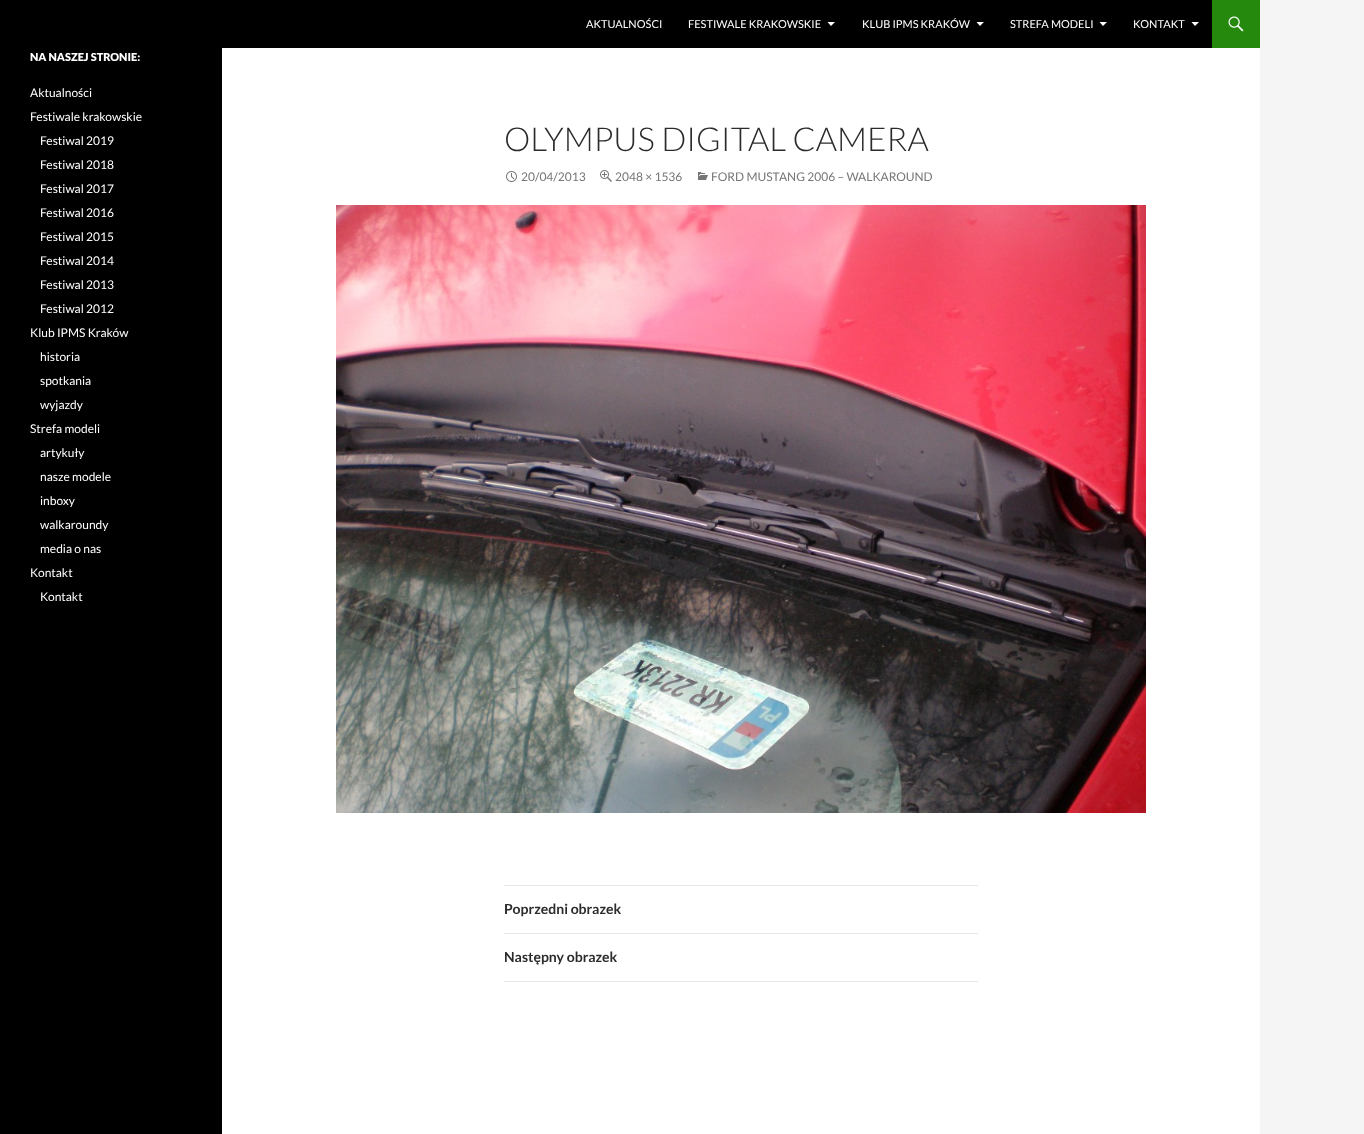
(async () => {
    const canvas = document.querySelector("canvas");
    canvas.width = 1364;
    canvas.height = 1134;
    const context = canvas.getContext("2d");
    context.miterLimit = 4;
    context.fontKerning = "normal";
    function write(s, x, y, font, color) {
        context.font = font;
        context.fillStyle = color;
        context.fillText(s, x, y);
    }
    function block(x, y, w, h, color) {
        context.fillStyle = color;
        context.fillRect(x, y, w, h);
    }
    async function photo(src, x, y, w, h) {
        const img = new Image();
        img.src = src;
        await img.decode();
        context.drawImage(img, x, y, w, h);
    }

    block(0, 0, 1364, 1134, "rgb(245, 245, 245)");
    block(222, 48, 1038, 1086, "rgb(255, 255, 255)");
    block(0, 0, 1212, 48, "rgb(0, 0, 0)");
    write("AKTUALNOŚCI", 586, 28, "11px Lato", "rgb(255, 255, 255)");
    write("FESTIWALE KRAKOWSKIE", 688, 28, "11px Lato", "rgb(255, 255, 255)");
    context.beginPath();
    context.moveTo(827.5, 22);
    context.lineTo(831, 26);
    context.lineTo(835, 22);
    context.closePath();
    context.fill();
    write("KLUB IPMS KRAKÓW", 862, 28, "11px Lato", "rgb(255, 255, 255)");
    context.beginPath();
    context.moveTo(976.5, 22);
    context.lineTo(980, 26);
    context.lineTo(984, 22);
    context.closePath();
    context.fill();
    write("STREFA MODELI", 1010, 28, "11px Lato", "rgb(255, 255, 255)");
    context.beginPath();
    context.moveTo(1099.5, 22);
    context.lineTo(1103, 26);
    context.lineTo(1107, 22);
    context.closePath();
    context.fill();
    write("KONTAKT", 1133, 28, "11px Lato", "rgb(255, 255, 255)");
    context.beginPath();
    context.moveTo(1191.5, 22);
    context.lineTo(1195, 26);
    context.lineTo(1199, 22);
    context.closePath();
    context.fill();
    block(1212, 0, 48, 48, "rgb(36, 137, 13)");
    await photo("media/1.png", 1228, 16, 16, 16);
    block(0, 48, 222, 1086, "rgb(0, 0, 0)");
    write("NA NASZEJ STRONIE:", 30, 61, "900 11px Lato", "rgb(255, 255, 255)");
    write("Aktualności", 30, 97, "12px Lato", "rgb(255, 255, 255)");
    write("Festiwale krakowskie", 30, 121, "12px Lato", "rgb(255, 255, 255)");
    write("Festiwal 2019", 40, 145, "12px Lato", "rgb(255, 255, 255)");
    write("Festiwal 2018", 40, 169, "12px Lato", "rgb(255, 255, 255)");
    write("Festiwal 2017", 40, 193, "12px Lato", "rgb(255, 255, 255)");
    write("Festiwal 2016", 40, 217, "12px Lato", "rgb(255, 255, 255)");
    write("Festiwal 2015", 40, 241, "12px Lato", "rgb(255, 255, 255)");
    write("Festiwal 2014", 40, 265, "12px Lato", "rgb(255, 255, 255)");
    write("Festiwal 2013", 40, 289, "12px Lato", "rgb(255, 255, 255)");
    write("Festiwal 2012", 40, 313, "12px Lato", "rgb(255, 255, 255)");
    write("Klub IPMS Kraków", 30, 337, "12px Lato", "rgb(255, 255, 255)");
    write("historia", 40, 361, "12px Lato", "rgb(255, 255, 255)");
    write("spotkania", 40, 385, "12px Lato", "rgb(255, 255, 255)");
    write("wyjazdy", 40, 409, "12px Lato", "rgb(255, 255, 255)");
    write("Strefa modeli", 30, 433, "12px Lato", "rgb(255, 255, 255)");
    write("artykuły", 40, 457, "12px Lato", "rgb(255, 255, 255)");
    write("nasze modele", 40, 481, "12px Lato", "rgb(255, 255, 255)");
    write("inboxy", 40, 505, "12px Lato", "rgb(255, 255, 255)");
    write("walkaroundy", 40, 529, "12px Lato", "rgb(255, 255, 255)");
    write("media o nas", 40, 553, "12px Lato", "rgb(255, 255, 255)");
    write("Kontakt", 30, 577, "12px Lato", "rgb(255, 255, 255)");
    write("Kontakt", 40, 601, "12px Lato", "rgb(255, 255, 255)");
    write("OLYMPUS DIGITAL CAMERA", 504, 151, "300 33px Lato", "rgb(43, 43, 43)");
    await photo("media/2.png", 506, 171, 11, 11);
    write("20/04/2013", 521, 181, "12px Lato", "rgb(118, 118, 118)");
    await photo("media/3.png", 600, 170, 12, 12);
    write("2048 × 1536", 615, 181, "12px Lato", "rgb(118, 118, 118)");
    await photo("media/4.png", 698, 172, 10, 8);
    write("FORD MUSTANG 2006 – WALKAROUND", 711, 181, "12px Lato", "rgb(118, 118, 118)");
    await photo("media/5.png", 336, 205, 810, 608);
    block(504, 885, 474, 1, "rgb(230, 230, 230)");
    block(504, 933, 474, 1, "rgb(230, 230, 230)");
    write("Poprzedni obrazek", 504, 914, "bold 14px Lato", "rgb(43, 43, 43)");
    block(504, 981, 474, 1, "rgb(230, 230, 230)");
    write("Następny obrazek", 504, 962, "bold 14px Lato", "rgb(43, 43, 43)");
})();
